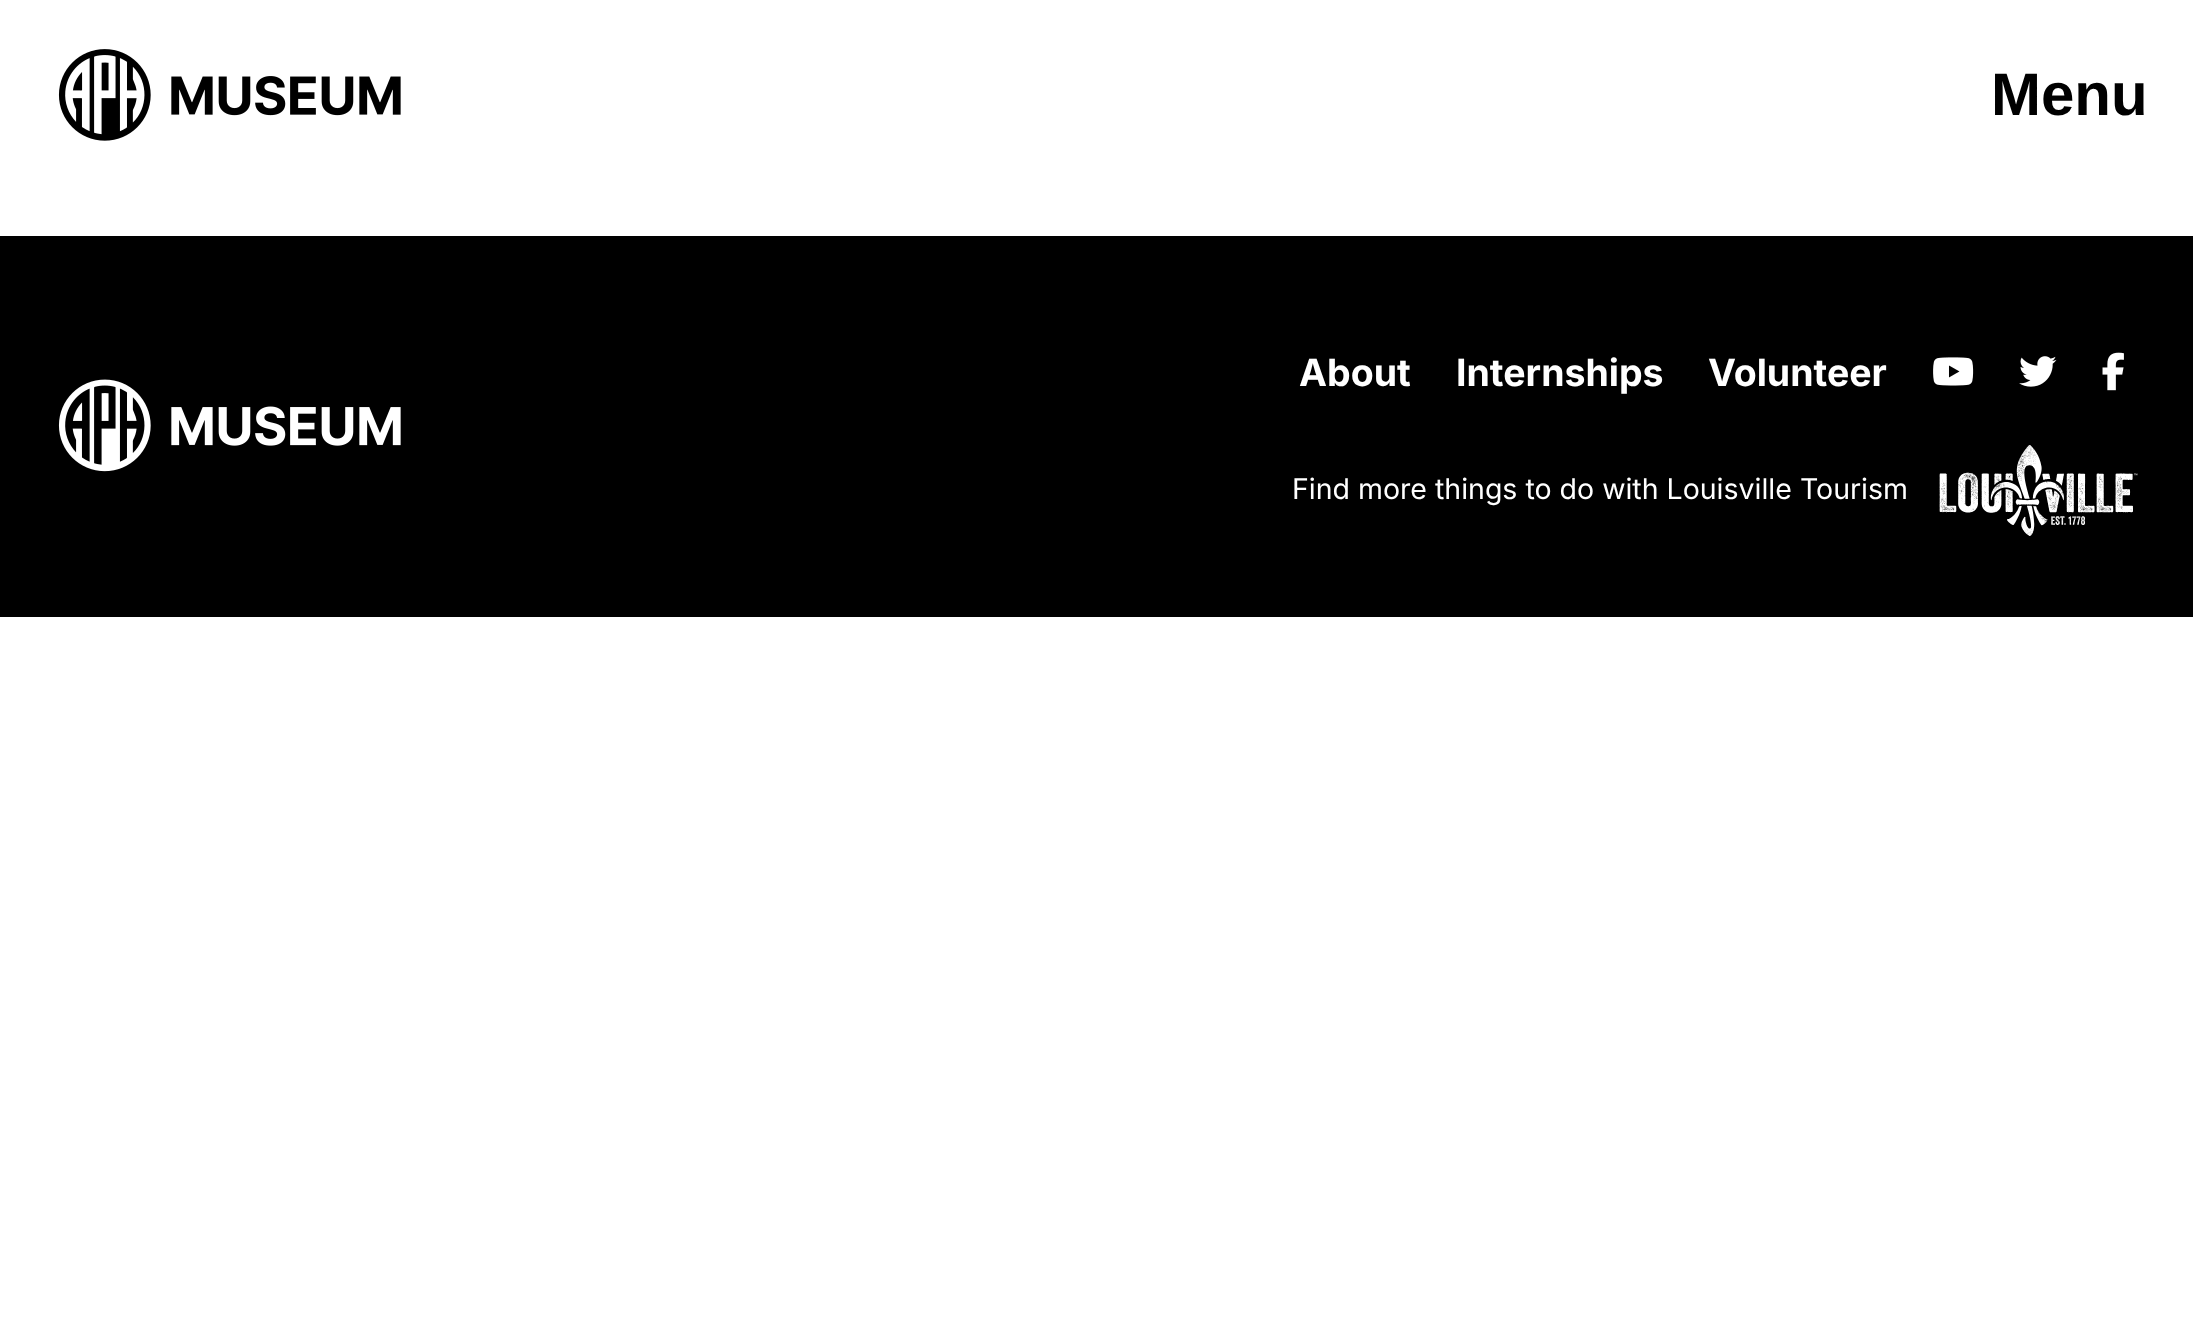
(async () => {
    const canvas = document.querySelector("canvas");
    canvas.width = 2193;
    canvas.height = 1326;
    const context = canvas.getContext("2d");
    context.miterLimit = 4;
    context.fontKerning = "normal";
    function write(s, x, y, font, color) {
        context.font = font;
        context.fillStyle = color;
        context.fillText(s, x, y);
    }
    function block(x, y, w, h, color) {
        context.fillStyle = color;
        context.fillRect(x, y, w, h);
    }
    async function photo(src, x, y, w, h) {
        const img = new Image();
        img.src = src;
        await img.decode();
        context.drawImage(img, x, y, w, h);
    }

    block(0, 0, 2193, 1326, "rgb(255, 255, 255)");
    await photo("media/1.png", 58, 49, 343, 92);
    write("Menu", 1991, 115, "bold 60px Liberation Sans", "rgb(0, 0, 0)");
    block(0, 236, 2193, 381, "rgb(0, 0, 0)");
    await photo("media/2.png", 58, 379, 343, 93);
    write("About", 1299, 386, "bold 37.5px Inter", "rgb(255, 255, 255)");
    write("Internships", 1456, 386, "bold 37.5px Inter", "rgb(255, 255, 255)");
    write("Volunteer", 1708, 386, "bold 37.5px Inter", "rgb(255, 255, 255)");
    await photo("media/3.png", 1933, 357, 41, 29);
    await photo("media/4.png", 2019, 356, 38, 31);
    await photo("media/5.png", 2102, 352, 22, 39);
    write("Find more things to do with Louisville Tourism", 1292, 499, "28.5px Inter", "rgb(255, 255, 255)");
    await photo("media/6.png", 1939, 445, 199, 91);
})();
